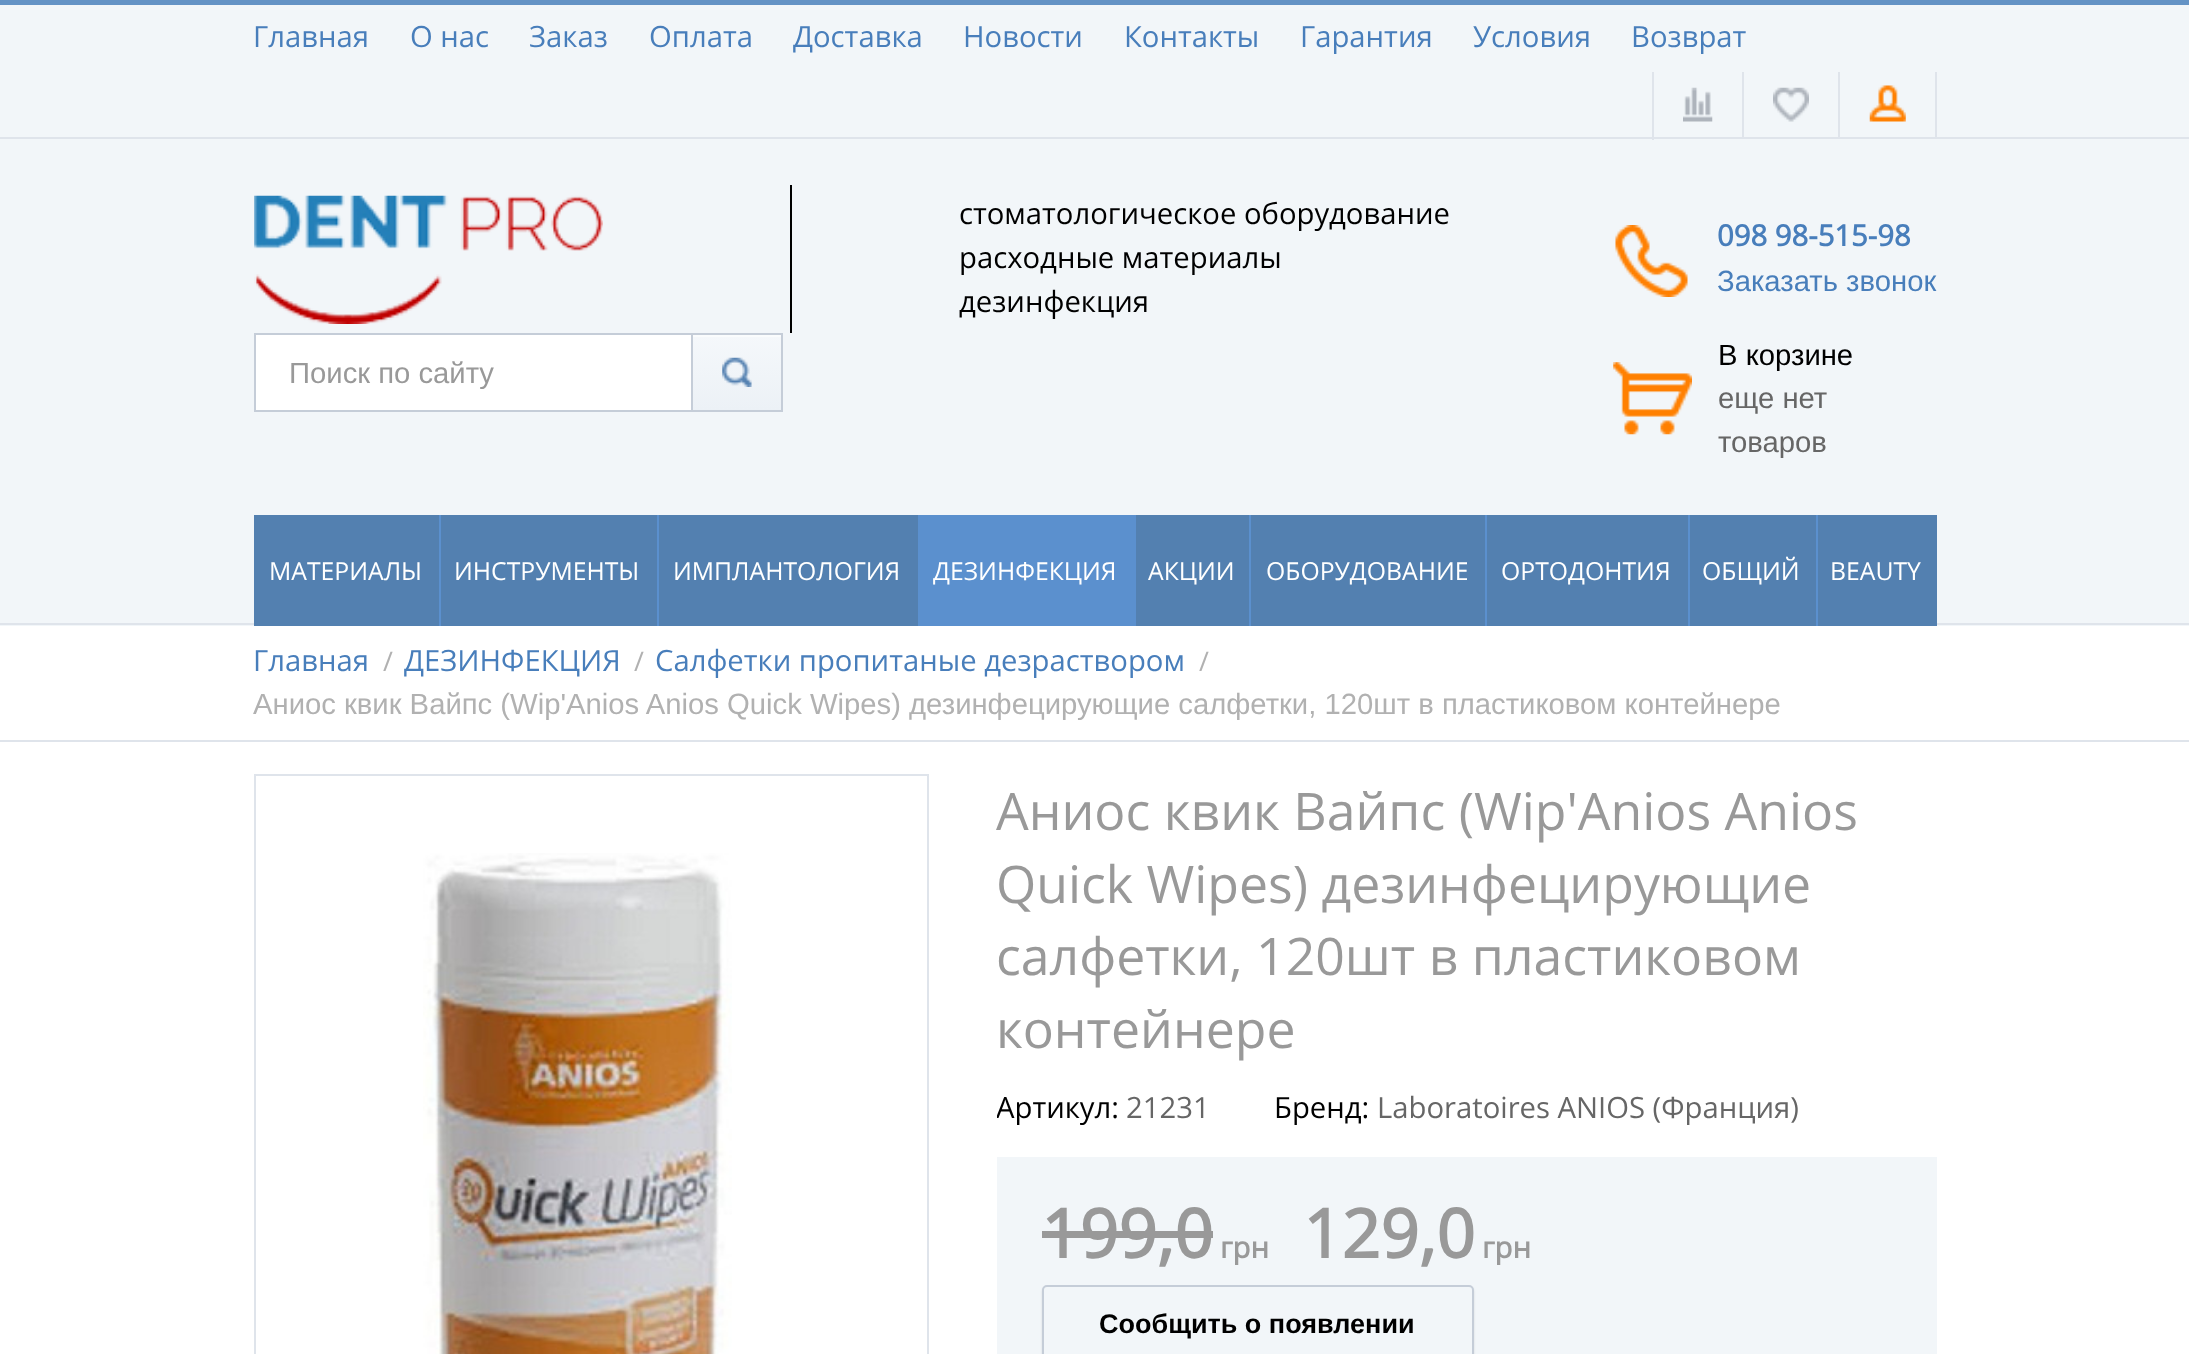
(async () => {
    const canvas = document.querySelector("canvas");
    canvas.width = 2189;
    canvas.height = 1354;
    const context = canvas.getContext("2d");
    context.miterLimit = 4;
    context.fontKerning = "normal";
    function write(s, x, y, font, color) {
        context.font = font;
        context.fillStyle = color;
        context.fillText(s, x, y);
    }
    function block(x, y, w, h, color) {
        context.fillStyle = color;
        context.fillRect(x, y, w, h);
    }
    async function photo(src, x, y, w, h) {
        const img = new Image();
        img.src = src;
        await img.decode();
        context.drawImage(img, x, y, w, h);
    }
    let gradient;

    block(0, 0, 2189, 1354, "rgb(255, 255, 255)");
    block(0, 5, 2189, 621, "rgb(242, 246, 249)");
    block(0, 0, 2189, 5, "rgb(100, 147, 197)");
    block(0, 623, 2189, 2, "rgb(223, 228, 235)");
    block(0, 137, 2189, 2, "rgb(223, 228, 235)");
    write("Главная", 253, 47, "29.25px Open Sans", "rgb(72, 126, 187)");
    write("О нас", 410, 47, "29.25px Open Sans", "rgb(72, 126, 187)");
    write("Заказ", 529, 47, "29.25px Open Sans", "rgb(72, 126, 187)");
    write("Оплата", 649, 47, "29.25px Open Sans", "rgb(72, 126, 187)");
    write("Доставка", 793, 47, "29.25px Open Sans", "rgb(72, 126, 187)");
    write("Новости", 963, 47, "29.25px Open Sans", "rgb(72, 126, 187)");
    write("Контакты", 1124, 47, "29.25px Open Sans", "rgb(72, 126, 187)");
    write("Гарантия", 1300, 47, "29.25px Open Sans", "rgb(72, 126, 187)");
    write("Условия", 1473, 47, "29.25px Open Sans", "rgb(72, 126, 187)");
    write("Возврат", 1631, 47, "29.25px Open Sans", "rgb(72, 126, 187)");
    block(1652, 72, 2, 68, "rgb(223, 228, 235)");
    block(1742, 72, 2, 65, "rgb(223, 228, 235)");
    await photo("media/1.png", 1683, 87, 30, 35);
    block(1838, 72, 2, 65, "rgb(223, 228, 235)");
    await photo("media/2.png", 1773, 87, 36, 35);
    block(1935, 72, 2, 65, "rgb(223, 228, 235)");
    await photo("media/3.png", 1869, 85, 37, 37);
    await photo("media/4.png", 254, 195, 349, 129);
    block(790, 185, 2, 148, "rgb(0, 0, 0)");
    write("стоматологическое оборудование", 959, 224, "29.25px Open Sans", "rgb(0, 0, 0)");
    write("расходные материалы", 959, 268, "29.25px Open Sans", "rgb(0, 0, 0)");
    write("дезинфекция", 959, 312, "29.25px Open Sans", "rgb(0, 0, 0)");
    await photo("media/5.png", 1615, 225, 73, 72);
    write("098 98-515-98", 1717, 246, "bold 29.25px Open Sans", "rgb(72, 126, 187)");
    write("Заказать звонок", 1717, 291, "29.25px Liberation Sans", "rgb(72, 126, 187)");
    block(256, 335, 435, 75, "rgb(255, 255, 255)");
    context.strokeStyle = "rgb(197, 205, 216)";
    context.lineWidth = 2;
    context.strokeRect(255, 334, 527, 77);
    write("Поиск по сайту", 289, 383, "29.25px Liberation Sans", "rgb(153, 153, 153)");
    gradient = context.createLinearGradient(737, 335, 737, 410);
    gradient.addColorStop(0, "rgb(245, 248, 251)");
    gradient.addColorStop(1, "rgb(236, 241, 246)");
    context.fillStyle = gradient;
    context.fillRect(693, 337, 88, 73);
    block(693, 335, 88, 2, "rgb(250, 252, 253)");
    context.strokeRect(692, 334, 90, 77);
    await photo("media/6.png", 722, 357, 30, 30);
    await photo("media/7.png", 1613, 362, 79, 73);
    write("В корзине", 1718, 365, "29.25px Liberation Sans", "rgb(0, 0, 0)");
    write("еще нет", 1718, 408, "29.25px Liberation Sans", "rgb(102, 102, 102)");
    write("товаров", 1718, 452, "29.25px Liberation Sans", "rgb(102, 102, 102)");
    block(254, 515, 1683, 111, "rgb(83, 128, 176)");
    write("МАТЕРИАЛЫ", 269, 580, "24.75px Open Sans", "rgb(255, 255, 255)");
    block(439, 515, 2, 111, "rgb(91, 144, 206)");
    write("ИНСТРУМЕНТЫ", 454, 580, "24.75px Open Sans", "rgb(255, 255, 255)");
    block(657, 515, 2, 111, "rgb(91, 144, 206)");
    write("ИМПЛАНТОЛОГИЯ", 673, 580, "24.75px Open Sans", "rgb(255, 255, 255)");
    block(918, 515, 218, 111, "rgb(91, 144, 206)");
    write("ДЕЗИНФЕКЦИЯ", 933, 580, "24.75px Open Sans", "rgb(255, 255, 255)");
    write("АКЦИИ", 1148, 580, "24.75px Open Sans", "rgb(255, 255, 255)");
    block(1249, 515, 2, 111, "rgb(91, 144, 206)");
    write("ОБОРУДОВАНИЕ", 1266, 580, "24.75px Open Sans", "rgb(255, 255, 255)");
    block(1485, 515, 2, 111, "rgb(91, 144, 206)");
    write("ОРТОДОНТИЯ", 1501, 580, "24.75px Open Sans", "rgb(255, 255, 255)");
    block(1688, 515, 2, 111, "rgb(91, 144, 206)");
    write("ОБЩИЙ", 1702, 580, "24.75px Open Sans", "rgb(255, 255, 255)");
    block(1816, 515, 2, 111, "rgb(91, 144, 206)");
    write("BEAUTY", 1830, 580, "24.75px Open Sans", "rgb(255, 255, 255)");
    block(0, 740, 2189, 2, "rgb(223, 228, 235)");
    write("Главная", 253, 671, "29.25px Open Sans", "rgb(72, 126, 187)");
    write("/", 383, 671, "27px Open Sans", "rgb(177, 177, 177)");
    write("ДЕЗИНФЕКЦИЯ", 404, 671, "29.25px Open Sans", "rgb(72, 126, 187)");
    write("/", 634, 671, "27px Open Sans", "rgb(177, 177, 177)");
    write("Салфетки пропитаные дезраствором", 655, 671, "29.25px Open Sans", "rgb(72, 126, 187)");
    write("/", 1199, 671, "27px Open Sans", "rgb(177, 177, 177)");
    write("Аниос квик Вайпс (Wip'Anios Anios Quick Wipes) дезинфецирующие салфетки, 120шт в пластиковом контейнере", 253, 714, "29.25px Liberation Sans", "rgb(177, 177, 177)");
    context.strokeStyle = "rgb(223, 228, 235)";
    context.strokeRect(255, 775, 673, 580);
    await photo("media/8.png", 423, 853, 309, 501);
    write("Аниос квик Вайпс (Wip'Anios Anios", 996, 830, "51.75px Open Sans", "rgb(153, 153, 153)");
    write("Quick Wipes) дезинфецирующие", 996, 903, "51.75px Open Sans", "rgb(153, 153, 153)");
    write("салфетки, 120шт в пластиковом", 996, 975, "51.75px Open Sans", "rgb(153, 153, 153)");
    write("контейнере", 996, 1048, "51.75px Open Sans", "rgb(153, 153, 153)");
    context.save();
    context.beginPath();
    context.rect(997, 1087, 940, 70);
    context.clip();
    write("Артикул:", 996, 1118, "29.25px Open Sans", "rgb(0, 0, 0)");
    context.restore();
    write("21231", 1126, 1118, "29.25px Open Sans", "rgb(102, 102, 102)");
    write("Бренд:", 1274, 1118, "29.25px Open Sans", "rgb(0, 0, 0)");
    write("Laboratoires ANIOS (Франция)", 1377, 1118, "29.25px Open Sans", "rgb(102, 102, 102)");
    block(997, 1157, 940, 197, "rgb(242, 246, 249)");
    write("199,0", 1041, 1258, "bold 67.5px Open Sans", "rgb(153, 153, 153)");
    block(1042, 1231, 171, 7, "rgb(153, 153, 153)");
    write("грн", 1220, 1258, "bold 29.25px Open Sans", "rgb(153, 153, 153)");
    write("129,0", 1303, 1258, "bold 67.5px Open Sans", "rgb(153, 153, 153)");
    write("грн", 1482, 1258, "bold 29.25px Open Sans", "rgb(153, 153, 153)");
    context.fillStyle = "rgba(0, 0, 0, 0.1)";
    context.filter = "blur(1px)";
    context.beginPath();
    context.roundRect(1042, 1287, 432, 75, 5);
    context.fill();
    context.filter = "none";
    context.fillStyle = "rgb(242, 246, 249)";
    context.beginPath();
    context.roundRect(1043, 1286, 430, 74, 4);
    context.fill();
    context.strokeStyle = "rgb(197, 205, 216)";
    context.stroke();
    write("Сообщить о появлении", 1099, 1333, "bold 27px Liberation Sans", "rgb(0, 0, 0)");
})();
